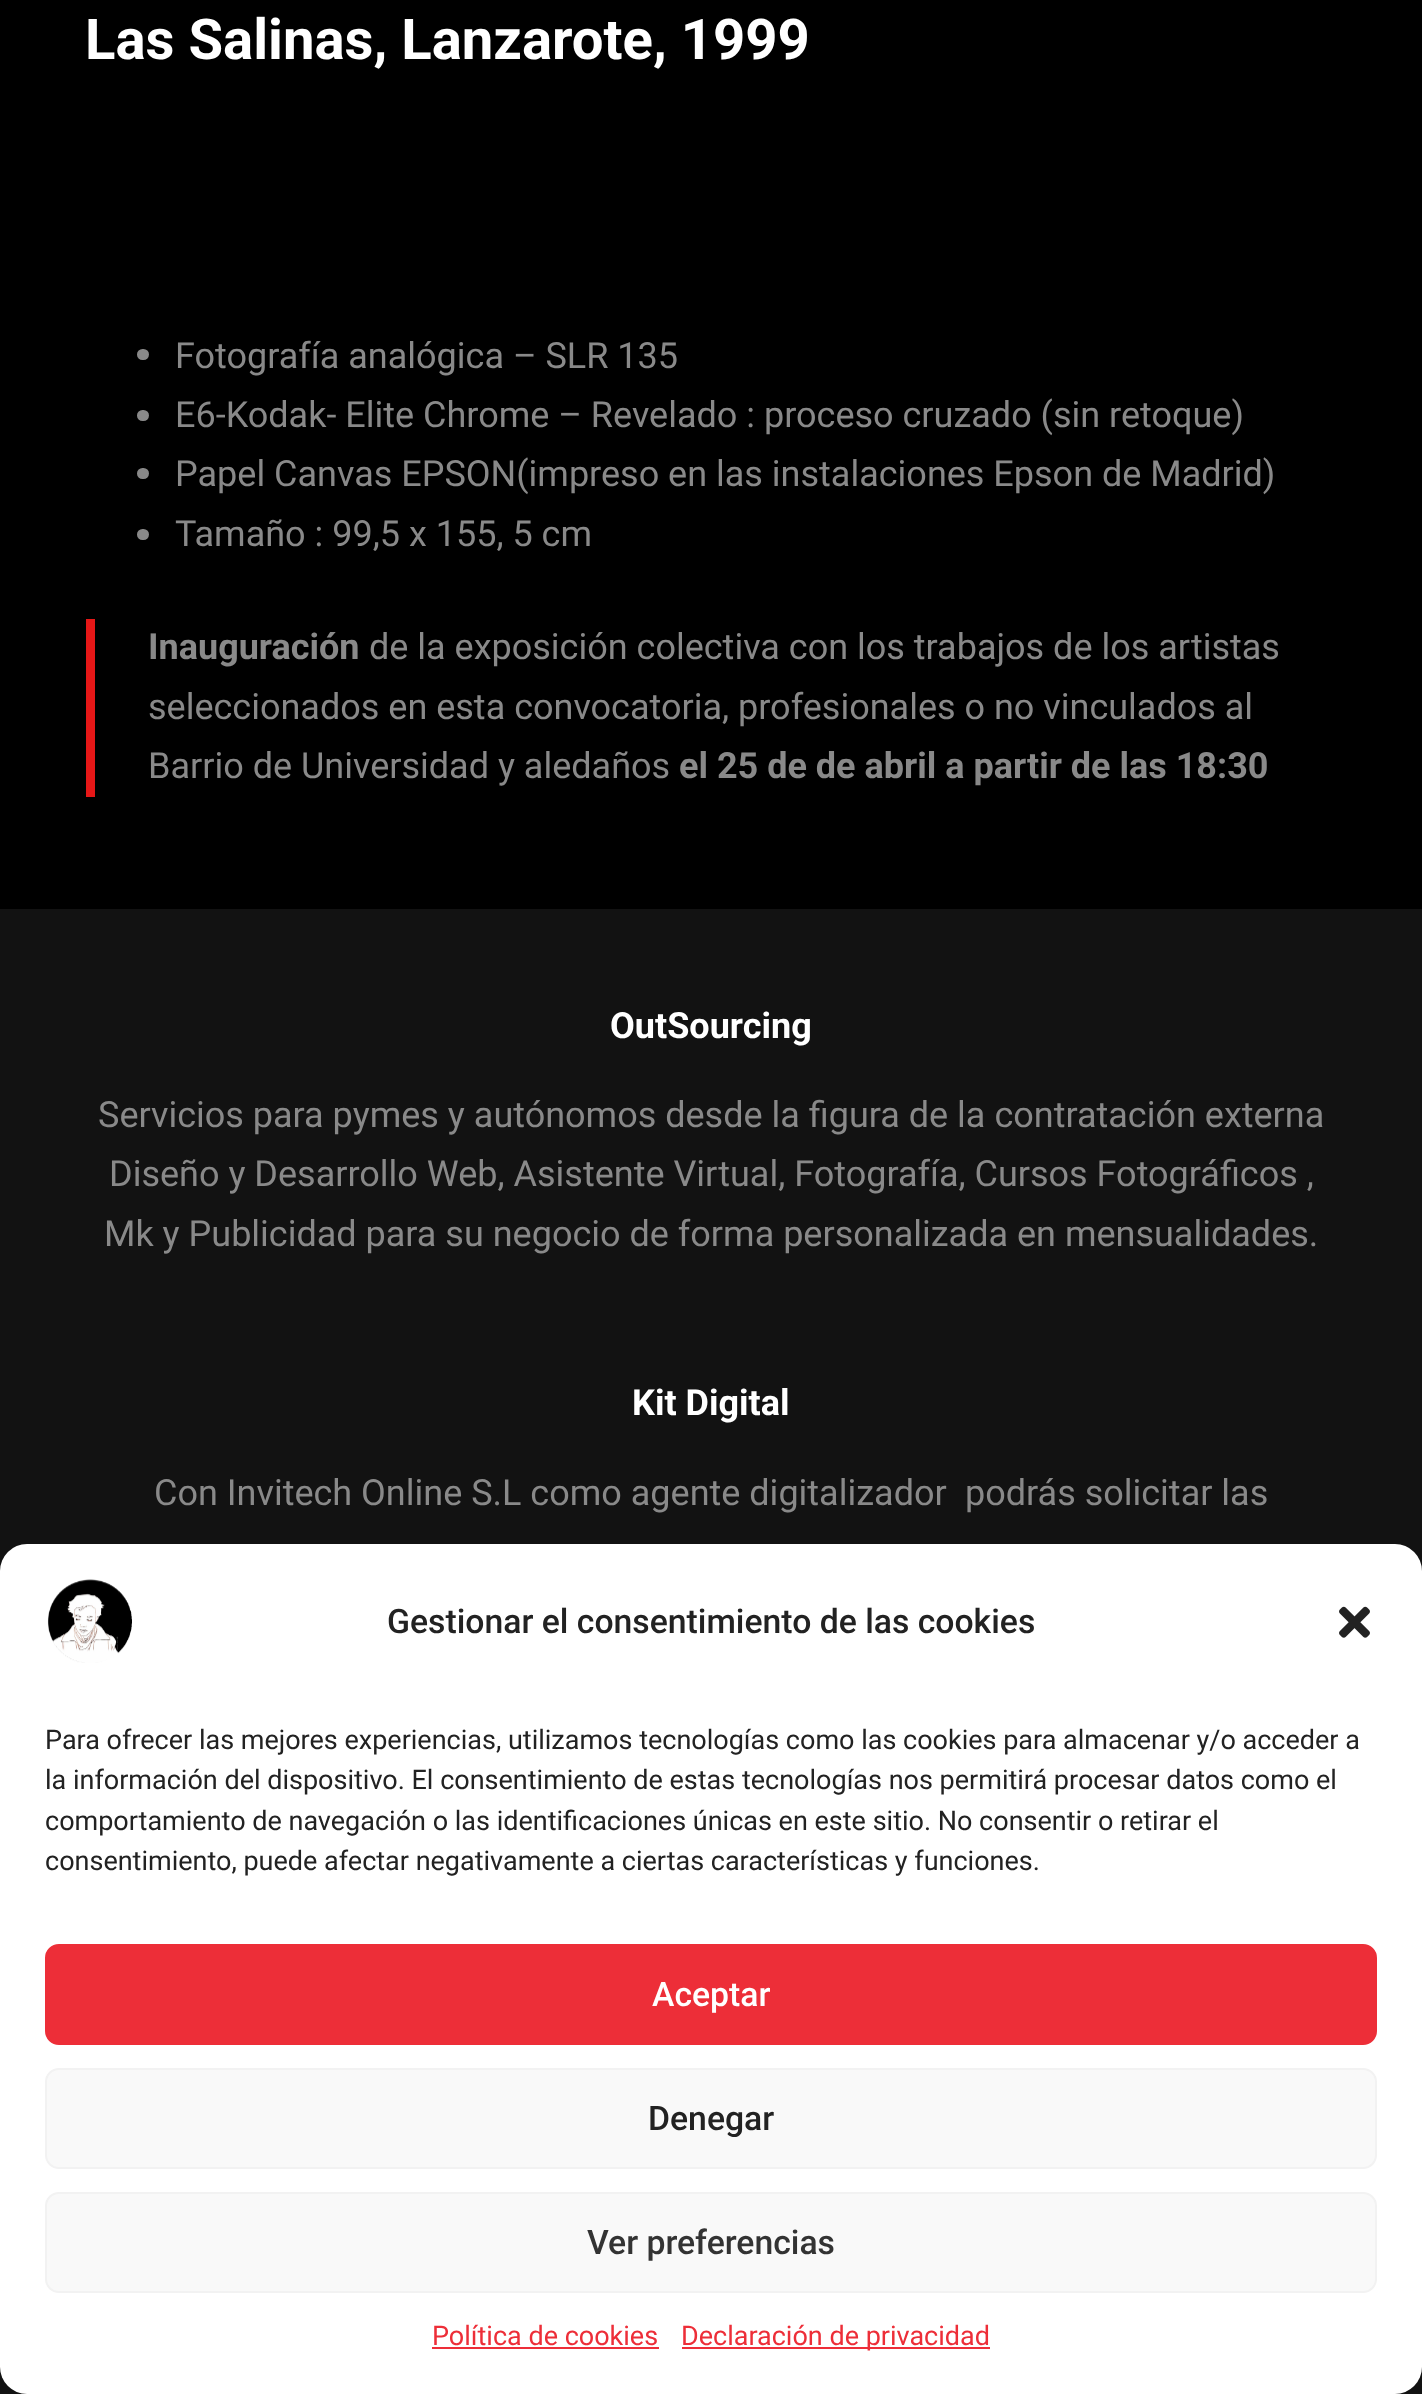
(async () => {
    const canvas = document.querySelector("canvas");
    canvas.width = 1422;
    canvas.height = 2394;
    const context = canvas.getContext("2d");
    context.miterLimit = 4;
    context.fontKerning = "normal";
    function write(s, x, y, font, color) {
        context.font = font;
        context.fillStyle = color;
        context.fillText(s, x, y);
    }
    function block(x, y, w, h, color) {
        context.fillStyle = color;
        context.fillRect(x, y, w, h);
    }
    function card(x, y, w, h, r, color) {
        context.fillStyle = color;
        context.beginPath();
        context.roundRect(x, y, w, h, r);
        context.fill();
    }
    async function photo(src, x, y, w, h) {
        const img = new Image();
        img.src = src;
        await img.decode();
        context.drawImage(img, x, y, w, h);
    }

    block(0, 0, 1422, 2394, "rgb(0, 0, 0)");
    write("Las Salinas, Lanzarote, 1999", 85, 59, "bold 56.25px Roboto", "rgb(255, 255, 255)");
    card(137, 349, 12, 11, 5.5, "rgb(137, 137, 137)");
    write("Fotografía analógica – SLR 135", 175, 368, "36px Roboto", "rgb(137, 137, 137)");
    card(137, 410, 12, 11, 5.5, "rgb(137, 137, 137)");
    write("E6-Kodak- Elite Chrome – Revelado : proceso cruzado (sin retoque)", 175, 427, "36px Roboto", "rgb(137, 137, 137)");
    card(137, 468, 12, 11, 5.5, "rgb(137, 137, 137)");
    write("Papel Canvas EPSON(impreso en las instalaciones Epson de Madrid)", 175, 486, "36px Roboto", "rgb(137, 137, 137)");
    card(137, 529, 12, 11, 5.5, "rgb(137, 137, 137)");
    write("Tamaño : 99,5 x 155, 5 cm", 175, 546, "36px Roboto", "rgb(137, 137, 137)");
    block(86, 619, 9, 178, "rgb(230, 23, 23)");
    write("Inauguración", 148, 659, "bold 36px Roboto", "rgb(137, 137, 137)");
    write("de la exposición colectiva con los trabajos de los artistas", 369, 659, "36px Roboto", "rgb(137, 137, 137)");
    write("seleccionados en esta convocatoria, profesionales o no vinculados al", 148, 719, "36px Roboto", "rgb(137, 137, 137)");
    write("Barrio de Universidad y aledaños", 148, 778, "36px Roboto", "rgb(137, 137, 137)");
    write("el 25 de de abril a partir de las 18:30", 679, 778, "bold 36px Roboto", "rgb(137, 137, 137)");
    block(0, 909, 1422, 1485, "rgb(18, 18, 18)");
    write("OutSourcing", 610, 1038, "bold 36px Roboto", "rgb(255, 255, 255)");
    write("Servicios para pymes y autónomos desde la figura de la contratación externa", 98, 1127, "36px Roboto", "rgb(137, 137, 137)");
    write("Diseño y Desarrollo Web, Asistente Virtual, Fotografía, Cursos Fotográficos ,", 109, 1186, "36px Roboto", "rgb(137, 137, 137)");
    write("Mk y Publicidad para su negocio de forma personalizada en mensualidades.", 104, 1246, "36px Roboto", "rgb(137, 137, 137)");
    write("Kit Digital", 632, 1415, "bold 36px Roboto", "rgb(255, 255, 255)");
    write("Con Invitech Online S.L como agente digitalizador", 154, 1505, "36px Roboto", "rgb(137, 137, 137)");
    write("podrás solicitar las", 965, 1505, "36px Roboto", "rgb(137, 137, 137)");
    card(0, 1544, 1422, 850, 27, "rgb(255, 255, 255)");
    await photo("media/1.png", 47, 1579, 85, 84);
    write("Gestionar el consentimiento de las cookies", 387, 1633, "500 33.75px Roboto", "rgb(34, 34, 34)");
    await photo("media/2.png", 1339, 1606, 31, 32);
    write("Para ofrecer las mejores experiencias, utilizamos tecnologías como las cookies para almacenar y/o acceder a", 45, 1749, "27px Roboto", "rgb(34, 34, 34)");
    write("la información del dispositivo. El consentimiento de estas tecnologías nos permitirá procesar datos como el", 45, 1789, "27px Roboto", "rgb(34, 34, 34)");
    write("comportamiento de navegación o las identificaciones únicas en este sitio. No consentir o retirar el", 45, 1830, "27px Roboto", "rgb(34, 34, 34)");
    write("consentimiento, puede afectar negativamente a ciertas características y funciones.", 45, 1870, "27px Roboto", "rgb(34, 34, 34)");
    context.fillStyle = "rgb(237, 46, 56)";
    context.beginPath();
    context.roundRect(46, 1945, 1330, 99, 13);
    context.fill();
    context.strokeStyle = "rgb(237, 46, 56)";
    context.lineWidth = 2;
    context.stroke();
    write("Aceptar", 652, 2006, "500 33.75px Roboto", "rgb(255, 255, 255)");
    context.fillStyle = "rgb(249, 249, 249)";
    context.beginPath();
    context.roundRect(46, 2069, 1330, 99, 13);
    context.fill();
    context.strokeStyle = "rgb(242, 242, 242)";
    context.stroke();
    write("Denegar", 648, 2130, "500 33.75px Roboto", "rgb(34, 34, 34)");
    context.fillStyle = "rgb(249, 249, 249)";
    context.beginPath();
    context.roundRect(46, 2193, 1330, 99, 13);
    context.fill();
    context.stroke();
    write("Ver preferencias", 587, 2254, "500 33.75px Roboto", "rgb(51, 51, 51)");
    write("Política de cookies", 432, 2345, "27px Roboto", "rgb(237, 46, 56)");
    block(432, 2347, 227, 2, "rgb(237, 46, 56)");
    block(682, 2347, 308, 2, "rgb(237, 46, 56)");
    write("Declaración de privacidad", 681, 2345, "27px Roboto", "rgb(237, 46, 56)");
})();
